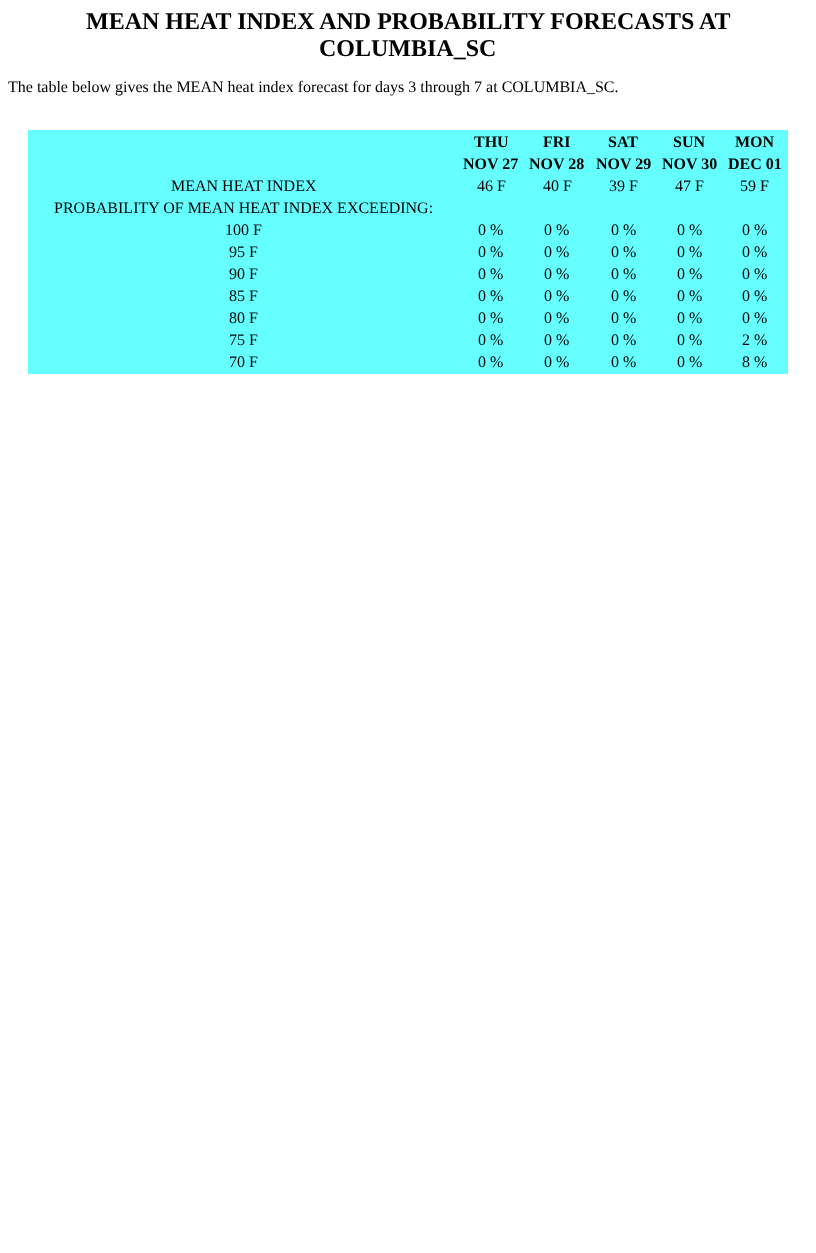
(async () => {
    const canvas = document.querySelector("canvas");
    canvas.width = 816;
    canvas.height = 1253;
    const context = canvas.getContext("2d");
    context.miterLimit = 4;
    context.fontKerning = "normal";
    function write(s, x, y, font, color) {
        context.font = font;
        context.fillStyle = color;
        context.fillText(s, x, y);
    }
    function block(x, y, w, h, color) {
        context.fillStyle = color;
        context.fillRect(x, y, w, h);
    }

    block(0, 0, 816, 1253, "rgb(255, 255, 255)");
    write("MEAN HEAT INDEX AND PROBABILITY FORECASTS AT", 86, 29, "bold 24px Liberation Serif", "rgb(0, 0, 0)");
    write("COLUMBIA_SC", 319, 56, "bold 24px Liberation Serif", "rgb(0, 0, 0)");
    write("The table below gives the MEAN heat index forecast for days 3 through 7 at COLUMBIA_SC.", 8, 92, "16px Liberation Serif", "rgb(0, 0, 0)");
    block(28, 130, 760, 244, "rgb(102, 255, 255)");
    write("THU", 474, 147, "bold 16px Liberation Serif", "rgb(0, 0, 0)");
    write("FRI", 543, 147, "bold 16px Liberation Serif", "rgb(0, 0, 0)");
    write("SAT", 608, 147, "bold 16px Liberation Serif", "rgb(0, 0, 0)");
    write("SUN", 673, 147, "bold 16px Liberation Serif", "rgb(0, 0, 0)");
    write("MON", 735, 147, "bold 16px Liberation Serif", "rgb(0, 0, 0)");
    write("NOV 27", 463, 169, "bold 16px Liberation Serif", "rgb(0, 0, 0)");
    write("NOV 28", 529, 169, "bold 16px Liberation Serif", "rgb(0, 0, 0)");
    write("NOV 29", 596, 169, "bold 16px Liberation Serif", "rgb(0, 0, 0)");
    write("NOV 30", 662, 169, "bold 16px Liberation Serif", "rgb(0, 0, 0)");
    write("DEC 01", 728, 169, "bold 16px Liberation Serif", "rgb(0, 0, 0)");
    write("MEAN HEAT INDEX", 171, 191, "16px Liberation Serif", "rgb(0, 0, 0)");
    write("46 F", 477, 191, "16px Liberation Serif", "rgb(0, 0, 0)");
    write("40 F", 543, 191, "16px Liberation Serif", "rgb(0, 0, 0)");
    write("39 F", 609, 191, "16px Liberation Serif", "rgb(0, 0, 0)");
    write("47 F", 675, 191, "16px Liberation Serif", "rgb(0, 0, 0)");
    write("59 F", 740, 191, "16px Liberation Serif", "rgb(0, 0, 0)");
    write("PROBABILITY OF MEAN HEAT INDEX EXCEEDING:", 54, 213, "16px Liberation Serif", "rgb(0, 0, 0)");
    write("100 F", 225, 235, "16px Liberation Serif", "rgb(0, 0, 0)");
    write("0 %", 478, 235, "16px Liberation Serif", "rgb(0, 0, 0)");
    write("0 %", 544, 235, "16px Liberation Serif", "rgb(0, 0, 0)");
    write("0 %", 611, 235, "16px Liberation Serif", "rgb(0, 0, 0)");
    write("0 %", 677, 235, "16px Liberation Serif", "rgb(0, 0, 0)");
    write("0 %", 742, 235, "16px Liberation Serif", "rgb(0, 0, 0)");
    write("95 F", 229, 257, "16px Liberation Serif", "rgb(0, 0, 0)");
    write("0 %", 478, 257, "16px Liberation Serif", "rgb(0, 0, 0)");
    write("0 %", 544, 257, "16px Liberation Serif", "rgb(0, 0, 0)");
    write("0 %", 611, 257, "16px Liberation Serif", "rgb(0, 0, 0)");
    write("0 %", 677, 257, "16px Liberation Serif", "rgb(0, 0, 0)");
    write("0 %", 742, 257, "16px Liberation Serif", "rgb(0, 0, 0)");
    write("90 F", 229, 279, "16px Liberation Serif", "rgb(0, 0, 0)");
    write("0 %", 478, 279, "16px Liberation Serif", "rgb(0, 0, 0)");
    write("0 %", 544, 279, "16px Liberation Serif", "rgb(0, 0, 0)");
    write("0 %", 611, 279, "16px Liberation Serif", "rgb(0, 0, 0)");
    write("0 %", 677, 279, "16px Liberation Serif", "rgb(0, 0, 0)");
    write("0 %", 742, 279, "16px Liberation Serif", "rgb(0, 0, 0)");
    write("85 F", 229, 301, "16px Liberation Serif", "rgb(0, 0, 0)");
    write("0 %", 478, 301, "16px Liberation Serif", "rgb(0, 0, 0)");
    write("0 %", 544, 301, "16px Liberation Serif", "rgb(0, 0, 0)");
    write("0 %", 611, 301, "16px Liberation Serif", "rgb(0, 0, 0)");
    write("0 %", 677, 301, "16px Liberation Serif", "rgb(0, 0, 0)");
    write("0 %", 742, 301, "16px Liberation Serif", "rgb(0, 0, 0)");
    write("80 F", 229, 323, "16px Liberation Serif", "rgb(0, 0, 0)");
    write("0 %", 478, 323, "16px Liberation Serif", "rgb(0, 0, 0)");
    write("0 %", 544, 323, "16px Liberation Serif", "rgb(0, 0, 0)");
    write("0 %", 611, 323, "16px Liberation Serif", "rgb(0, 0, 0)");
    write("0 %", 677, 323, "16px Liberation Serif", "rgb(0, 0, 0)");
    write("0 %", 742, 323, "16px Liberation Serif", "rgb(0, 0, 0)");
    write("75 F", 229, 345, "16px Liberation Serif", "rgb(0, 0, 0)");
    write("0 %", 478, 345, "16px Liberation Serif", "rgb(0, 0, 0)");
    write("0 %", 544, 345, "16px Liberation Serif", "rgb(0, 0, 0)");
    write("0 %", 611, 345, "16px Liberation Serif", "rgb(0, 0, 0)");
    write("0 %", 677, 345, "16px Liberation Serif", "rgb(0, 0, 0)");
    write("2 %", 742, 345, "16px Liberation Serif", "rgb(0, 0, 0)");
    write("70 F", 229, 367, "16px Liberation Serif", "rgb(0, 0, 0)");
    write("0 %", 478, 367, "16px Liberation Serif", "rgb(0, 0, 0)");
    write("0 %", 544, 367, "16px Liberation Serif", "rgb(0, 0, 0)");
    write("0 %", 611, 367, "16px Liberation Serif", "rgb(0, 0, 0)");
    write("0 %", 677, 367, "16px Liberation Serif", "rgb(0, 0, 0)");
    write("8 %", 742, 367, "16px Liberation Serif", "rgb(0, 0, 0)");
})();
